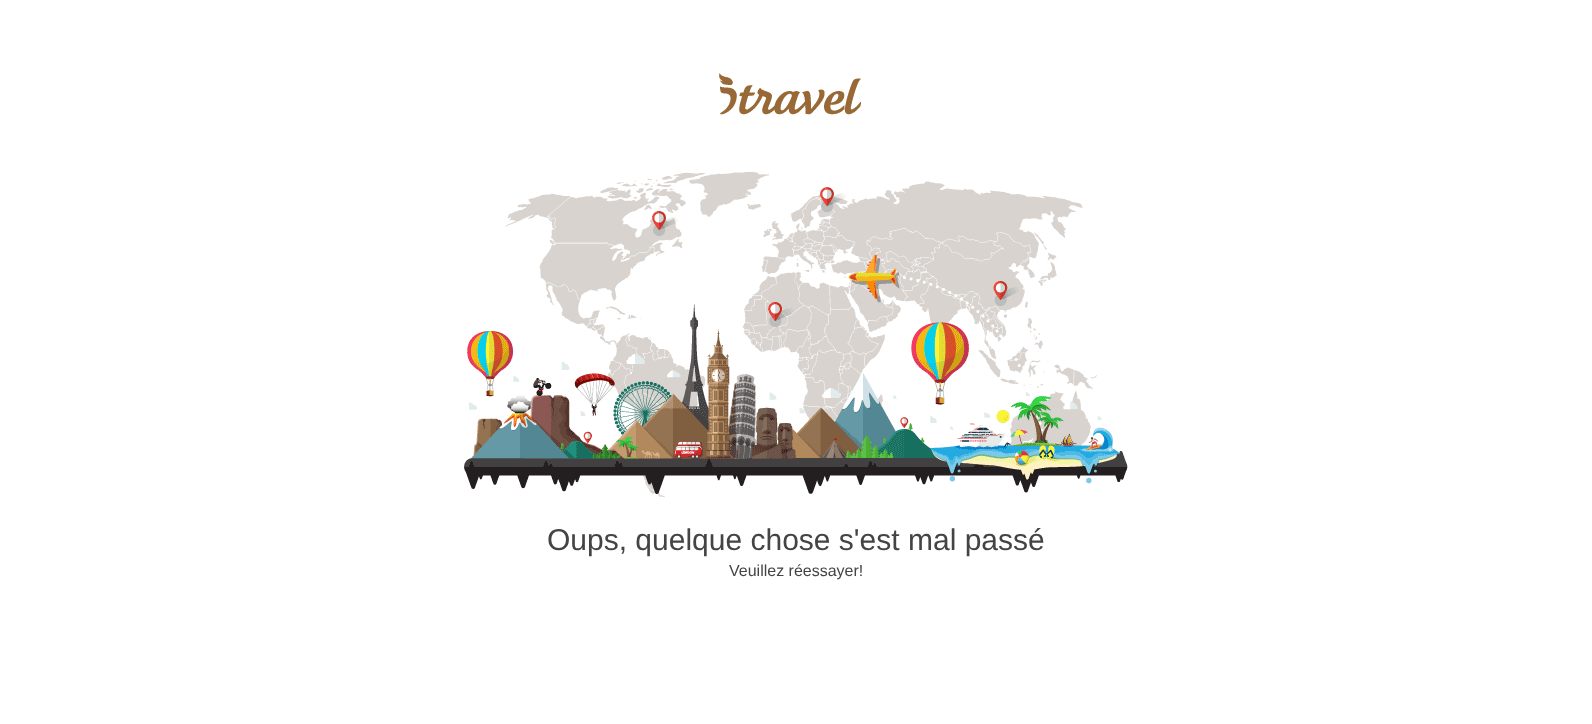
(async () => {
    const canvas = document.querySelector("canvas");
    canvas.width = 1592;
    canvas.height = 724;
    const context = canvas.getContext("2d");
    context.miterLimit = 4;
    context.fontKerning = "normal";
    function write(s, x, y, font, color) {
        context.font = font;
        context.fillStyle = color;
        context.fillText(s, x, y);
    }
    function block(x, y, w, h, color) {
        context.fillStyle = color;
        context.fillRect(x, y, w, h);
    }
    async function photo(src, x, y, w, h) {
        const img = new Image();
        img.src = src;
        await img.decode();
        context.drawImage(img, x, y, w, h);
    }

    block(0, 0, 1592, 724, "rgb(255, 255, 255)");
    await photo("media/1.png", 464, 73, 664, 425);
    write("Oups, quelque chose s'est mal passé", 547, 550, "30px Liberation Sans", "rgb(68, 68, 68)");
    write("Veuillez réessayer!", 729, 576, "16px Liberation Sans", "rgb(68, 68, 68)");
})();
